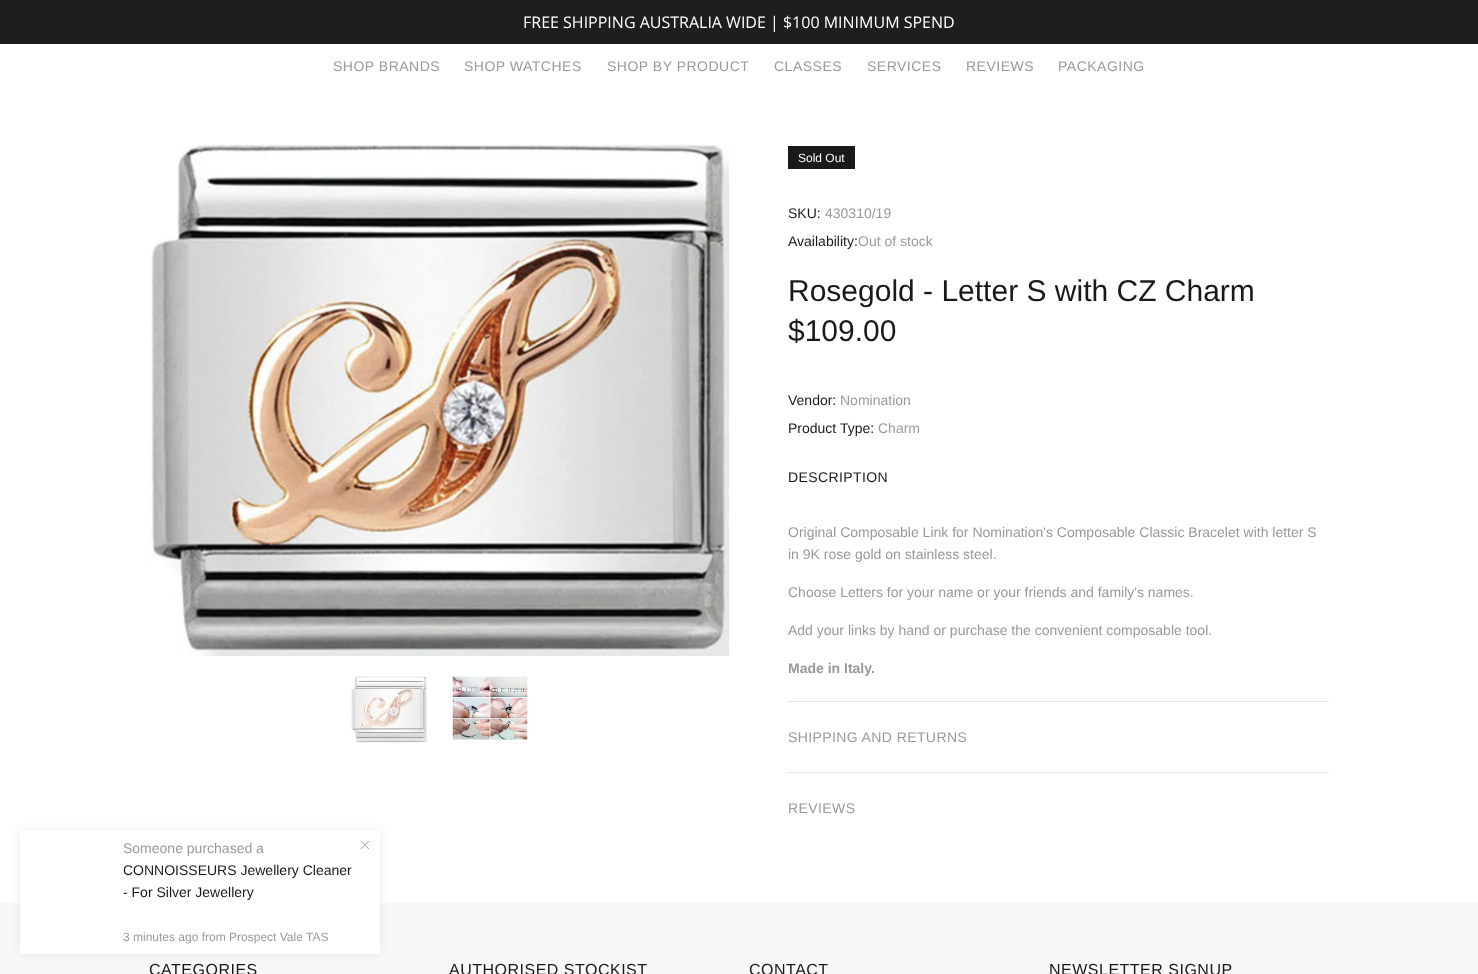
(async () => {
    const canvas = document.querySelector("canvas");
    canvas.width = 1478;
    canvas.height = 974;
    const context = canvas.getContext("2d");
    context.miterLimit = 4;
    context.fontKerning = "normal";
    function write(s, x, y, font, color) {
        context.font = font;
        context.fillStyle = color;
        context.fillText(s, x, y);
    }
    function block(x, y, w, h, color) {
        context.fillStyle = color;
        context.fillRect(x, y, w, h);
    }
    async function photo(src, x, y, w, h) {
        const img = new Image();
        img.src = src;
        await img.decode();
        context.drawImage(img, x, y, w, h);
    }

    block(0, 0, 1478, 974, "rgb(255, 255, 255)");
    block(0, 0, 1478, 44, "rgb(30, 30, 32)");
    write("FREE SHIPPING AUSTRALIA WIDE | $100 MINIMUM SPEND", 523, 28, "16px Open Sans", "rgb(255, 255, 255)");
    context.letterSpacing = "0.5px";
    write("SHOP BRANDS", 333, 71, "14px Liberation Sans", "rgb(153, 153, 153)");
    write("SHOP WATCHES", 464, 71, "14px Liberation Sans", "rgb(153, 153, 153)");
    write("SHOP BY PRODUCT", 607, 71, "14px Liberation Sans", "rgb(153, 153, 153)");
    write("CLASSES", 774, 71, "14px Liberation Sans", "rgb(153, 153, 153)");
    write("SERVICES", 867, 71, "14px Liberation Sans", "rgb(153, 153, 153)");
    write("REVIEWS", 966, 71, "14px Liberation Sans", "rgb(153, 153, 153)");
    write("PACKAGING", 1058, 71, "14px Liberation Sans", "rgb(153, 153, 153)");
    await photo("media/1.png", 149, 144, 580, 512);
    await photo("media/2.png", 351, 676, 76, 67);
    await photo("media/3.png", 452, 676, 76, 64);
    block(788, 146, 67, 23, "rgb(25, 25, 25)");
    context.letterSpacing = "0px";
    write("Sold Out", 798, 162, "12px Liberation Sans", "rgb(255, 255, 255)");
    write("SKU:", 788, 218, "14px Liberation Sans", "rgb(25, 25, 25)");
    write("430310/19", 825, 218, "14px Liberation Sans", "rgb(153, 153, 153)");
    write("Availability:", 788, 246, "14px Liberation Sans", "rgb(25, 25, 25)");
    write("Out of stock", 858, 246, "14px Liberation Sans", "rgb(153, 153, 153)");
    write("Rosegold - Letter S with CZ Charm", 788, 301, "30px Liberation Sans", "rgb(25, 25, 25)");
    write("$109.00", 788, 341, "30px Liberation Sans", "rgb(25, 25, 25)");
    write("Vendor:", 788, 405, "14px Liberation Sans", "rgb(25, 25, 25)");
    write("Nomination", 840, 405, "14px Liberation Sans", "rgb(153, 153, 153)");
    write("Product Type:", 788, 433, "14px Liberation Sans", "rgb(25, 25, 25)");
    write("Charm", 878, 433, "14px Liberation Sans", "rgb(153, 153, 153)");
    block(788, 701, 541, 1, "rgb(233, 231, 231)");
    context.letterSpacing = "0.4px";
    write("DESCRIPTION", 788, 482, "14px Liberation Sans", "rgb(25, 25, 25)");
    context.letterSpacing = "0px";
    write("Original Composable Link for Nomination's Composable Classic Bracelet with letter S", 788, 537, "14px Liberation Sans", "rgb(153, 153, 153)");
    write("in 9K rose gold on stainless steel.", 788, 559, "14px Liberation Sans", "rgb(153, 153, 153)");
    write("Choose Letters for your name or your friends and family's names.", 788, 597, "14px Liberation Sans", "rgb(153, 153, 153)");
    write("Add your links by hand or purchase the convenient composable tool.", 788, 635, "14px Liberation Sans", "rgb(153, 153, 153)");
    write("Made in Italy.", 788, 673, "bold 14px Liberation Sans", "rgb(153, 153, 153)");
    block(788, 772, 541, 1, "rgb(233, 231, 231)");
    context.letterSpacing = "0.4px";
    write("SHIPPING AND RETURNS", 788, 742, "14px Liberation Sans", "rgb(153, 153, 153)");
    write("REVIEWS", 788, 813, "14px Liberation Sans", "rgb(153, 153, 153)");
    block(0, 903, 1478, 71, "rgb(247, 248, 250)");
    context.fillStyle = "rgba(0, 0, 0, 0.08)";
    context.filter = "blur(5px)";
    context.beginPath();
    context.rect(20, 830, 360, 124);
    context.fill();
    context.filter = "none";
    block(20, 830, 360, 124, "rgb(255, 255, 255)");
    context.letterSpacing = "0px";
    write("Someone purchased a", 123, 853, "14px Liberation Sans", "rgb(153, 153, 153)");
    write("CONNOISSEURS Jewellery Cleaner", 123, 875, "14px Liberation Sans", "rgb(25, 25, 25)");
    write("- For Silver Jewellery", 123, 897, "14px Liberation Sans", "rgb(25, 25, 25)");
    write("3 minutes ago from Prospect Vale TAS", 123, 941, "12px Liberation Sans", "rgb(153, 153, 153)");
    await photo("media/4.png", 360, 841, 10, 9);
    context.letterSpacing = "0.5px";
    write("CATEGORIES", 149, 975, "16px Liberation Sans", "rgb(25, 25, 25)");
    write("AUTHORISED STOCKIST", 449, 975, "16px Liberation Sans", "rgb(25, 25, 25)");
    write("CONTACT", 749, 975, "16px Liberation Sans", "rgb(25, 25, 25)");
    write("NEWSLETTER SIGNUP", 1049, 975, "16px Liberation Sans", "rgb(25, 25, 25)");
})();
